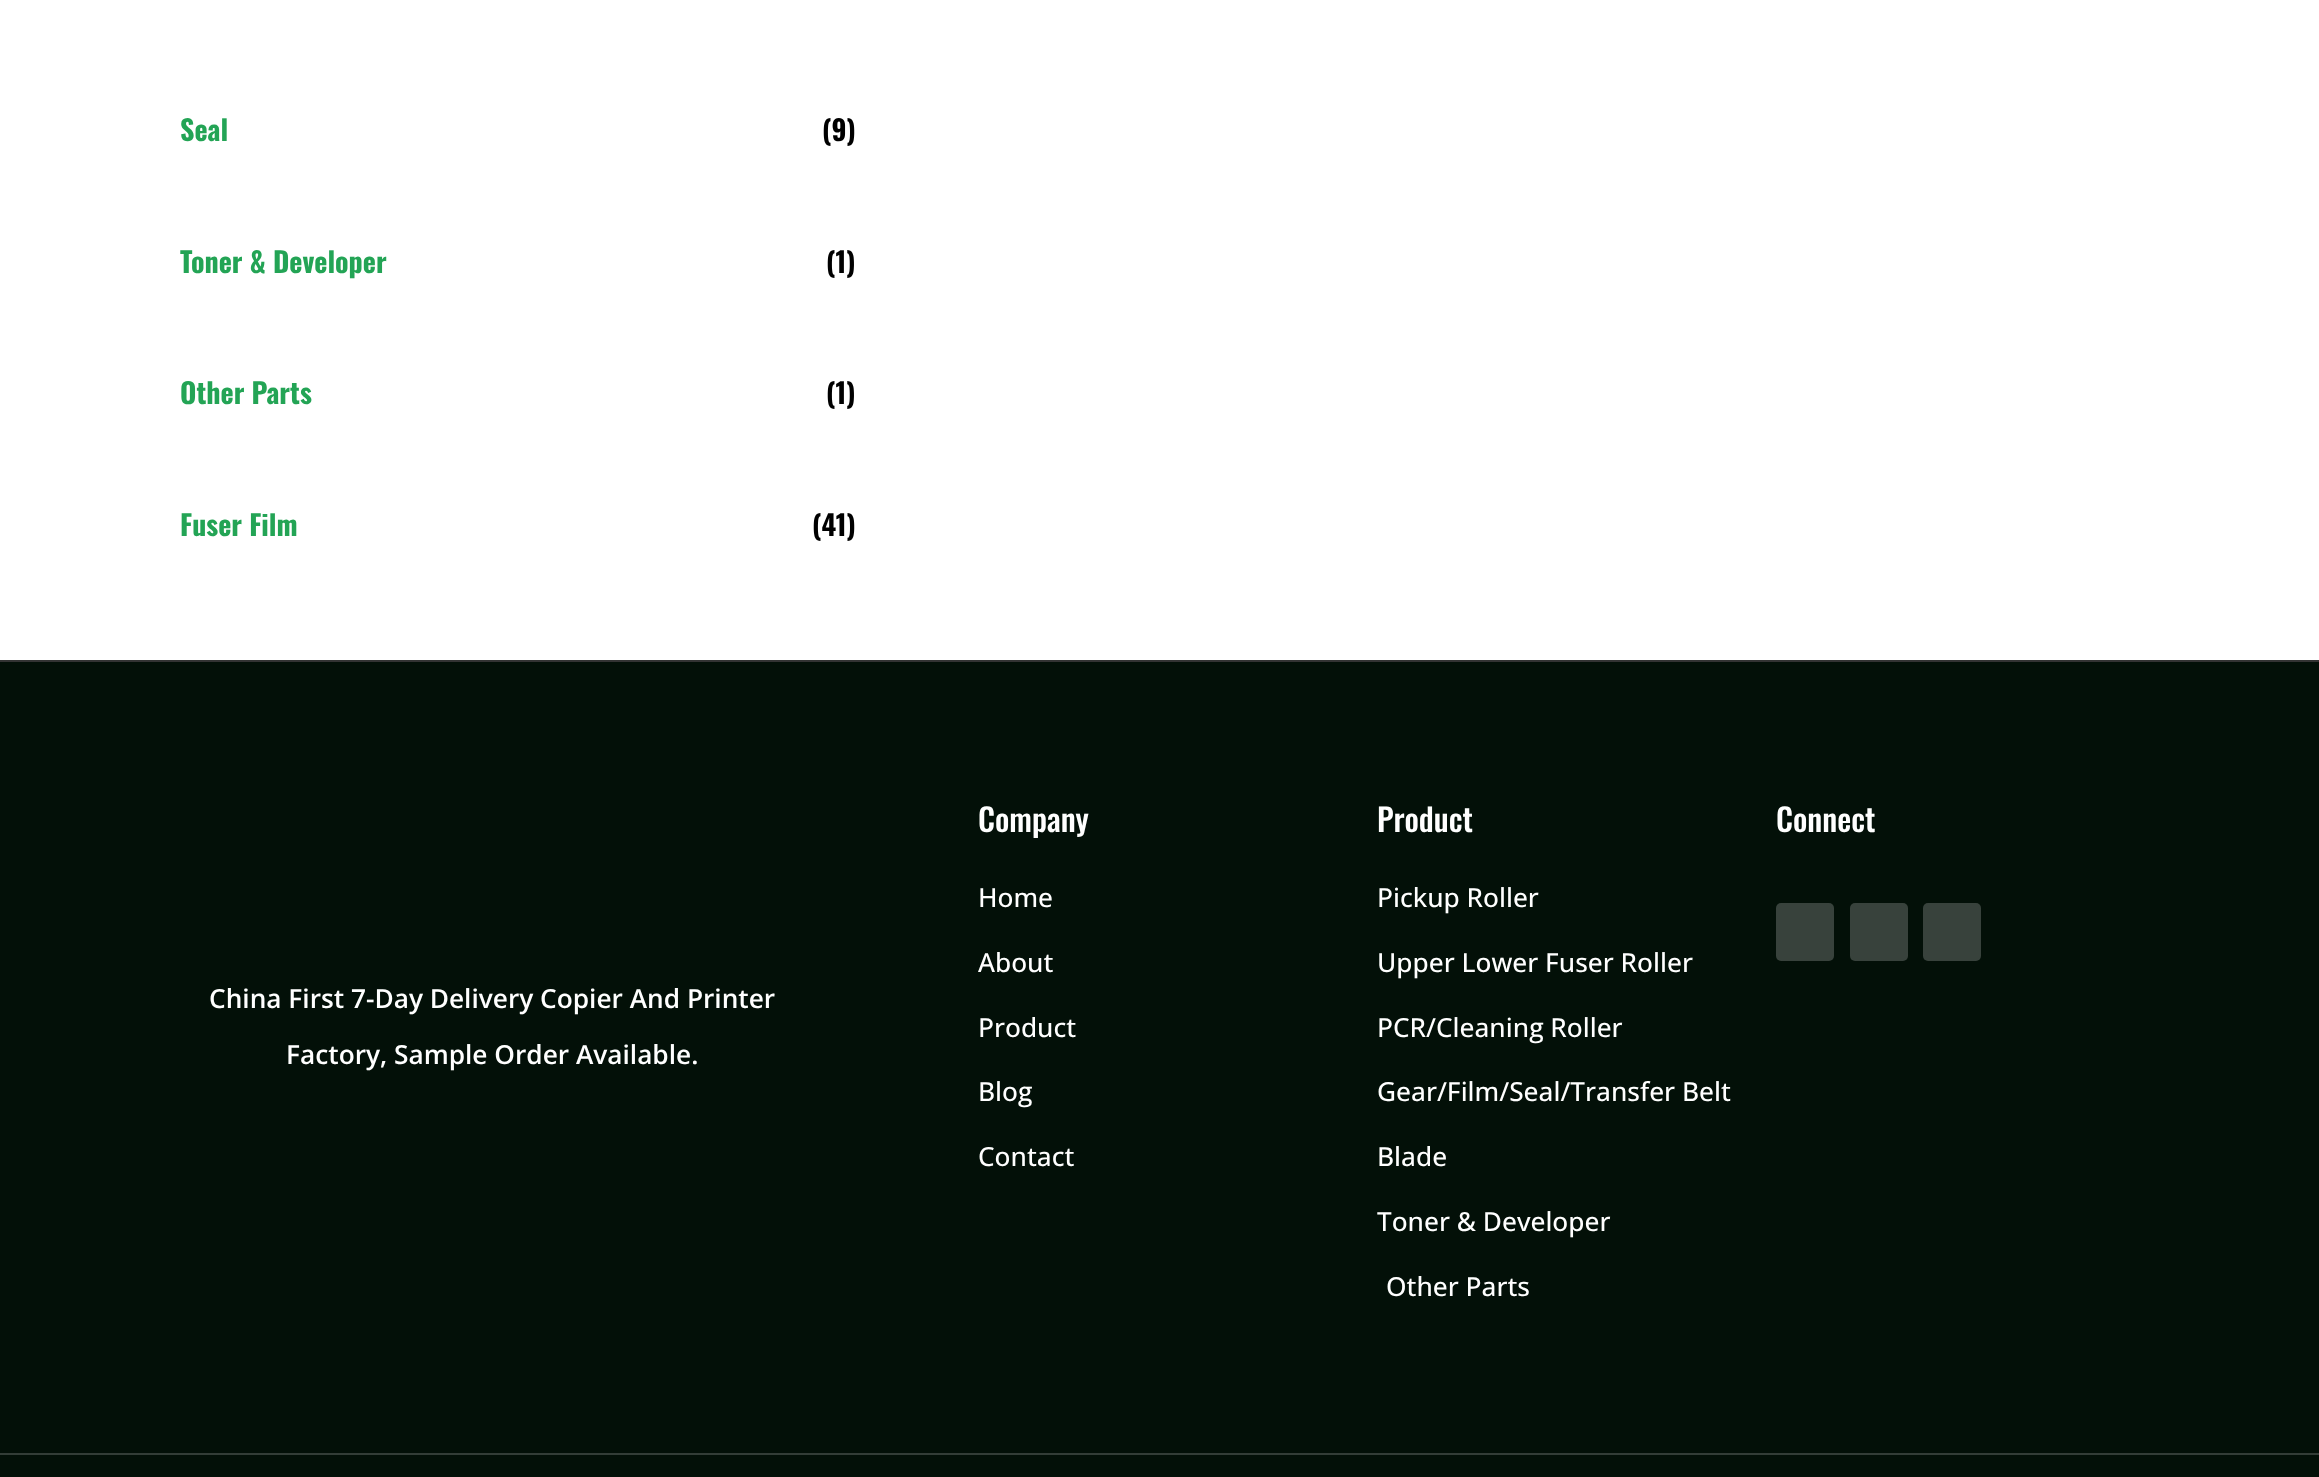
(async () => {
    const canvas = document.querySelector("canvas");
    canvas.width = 2319;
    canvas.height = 1477;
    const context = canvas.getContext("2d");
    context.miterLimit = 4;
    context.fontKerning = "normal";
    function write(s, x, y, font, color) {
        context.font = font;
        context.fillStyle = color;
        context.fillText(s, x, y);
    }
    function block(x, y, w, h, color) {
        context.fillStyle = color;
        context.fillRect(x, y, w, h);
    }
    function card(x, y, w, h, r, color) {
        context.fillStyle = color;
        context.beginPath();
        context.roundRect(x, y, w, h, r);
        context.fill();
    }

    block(0, 0, 2319, 1477, "rgb(255, 255, 255)");
    write("Seal", 180, 141, "bold 28px Oswald", "rgb(35, 164, 85)");
    write("(9)", 822, 141, "bold 28px Oswald", "rgb(0, 0, 0)");
    write("Toner & Developer", 180, 273, "bold 28px Oswald", "rgb(35, 164, 85)");
    write("(1)", 826, 273, "bold 28px Oswald", "rgb(0, 0, 0)");
    write("Other Parts", 180, 404, "bold 28px Oswald", "rgb(35, 164, 85)");
    write("(1)", 826, 404, "bold 28px Oswald", "rgb(0, 0, 0)");
    write("Fuser Film", 180, 536, "bold 28px Oswald", "rgb(35, 164, 85)");
    write("(41)", 812, 536, "bold 28px Oswald", "rgb(0, 0, 0)");
    block(0, 662, 2319, 791, "rgb(3, 16, 8)");
    block(0, 660, 2319, 2, "rgb(51, 51, 51)");
    write("Company", 978, 832, "500 31.5px Oswald", "rgb(255, 255, 255)");
    write("Home", 978, 907, "500 26.25px Open Sans", "rgb(255, 255, 255)");
    write("About", 978, 972, "500 26.25px Open Sans", "rgb(255, 255, 255)");
    write("Product", 978, 1037, "500 26.25px Open Sans", "rgb(255, 255, 255)");
    write("Blog", 978, 1101, "500 26.25px Open Sans", "rgb(255, 255, 255)");
    write("Contact", 978, 1166, "500 26.25px Open Sans", "rgb(255, 255, 255)");
    write("Product", 1377, 832, "500 31.5px Oswald", "rgb(255, 255, 255)");
    write("Pickup Roller", 1377, 907, "500 26.25px Open Sans", "rgb(255, 255, 255)");
    write("Upper Lower Fuser Roller", 1377, 972, "500 26.25px Open Sans", "rgb(255, 255, 255)");
    write("PCR/Cleaning Roller", 1377, 1037, "500 26.25px Open Sans", "rgb(255, 255, 255)");
    write("Gear/Film/Seal/Transfer Belt", 1377, 1101, "500 26.25px Open Sans", "rgb(255, 255, 255)");
    write("Blade", 1377, 1166, "500 26.25px Open Sans", "rgb(255, 255, 255)");
    write("Toner & Developer", 1377, 1231, "500 26.25px Open Sans", "rgb(255, 255, 255)");
    write("Other Parts", 1386, 1296, "500 26.25px Open Sans", "rgb(255, 255, 255)");
    write("Connect", 1776, 832, "500 31.5px Oswald", "rgb(255, 255, 255)");
    card(1776, 903, 58, 58, 5, "rgb(56, 66, 60)");
    card(1850, 903, 58, 58, 5, "rgb(56, 66, 60)");
    card(1923, 903, 58, 58, 5, "rgb(56, 66, 60)");
    write("China First 7-Day Delivery Copier And Printer", 209, 1008, "600 26.25px Open Sans", "rgb(255, 255, 255)");
    write("Factory, Sample Order Available.", 286, 1064, "600 26.25px Open Sans", "rgb(255, 255, 255)");
    block(0, 1455, 2319, 22, "rgb(3, 16, 8)");
    block(0, 1453, 2319, 2, "rgb(51, 61, 55)");
})();
